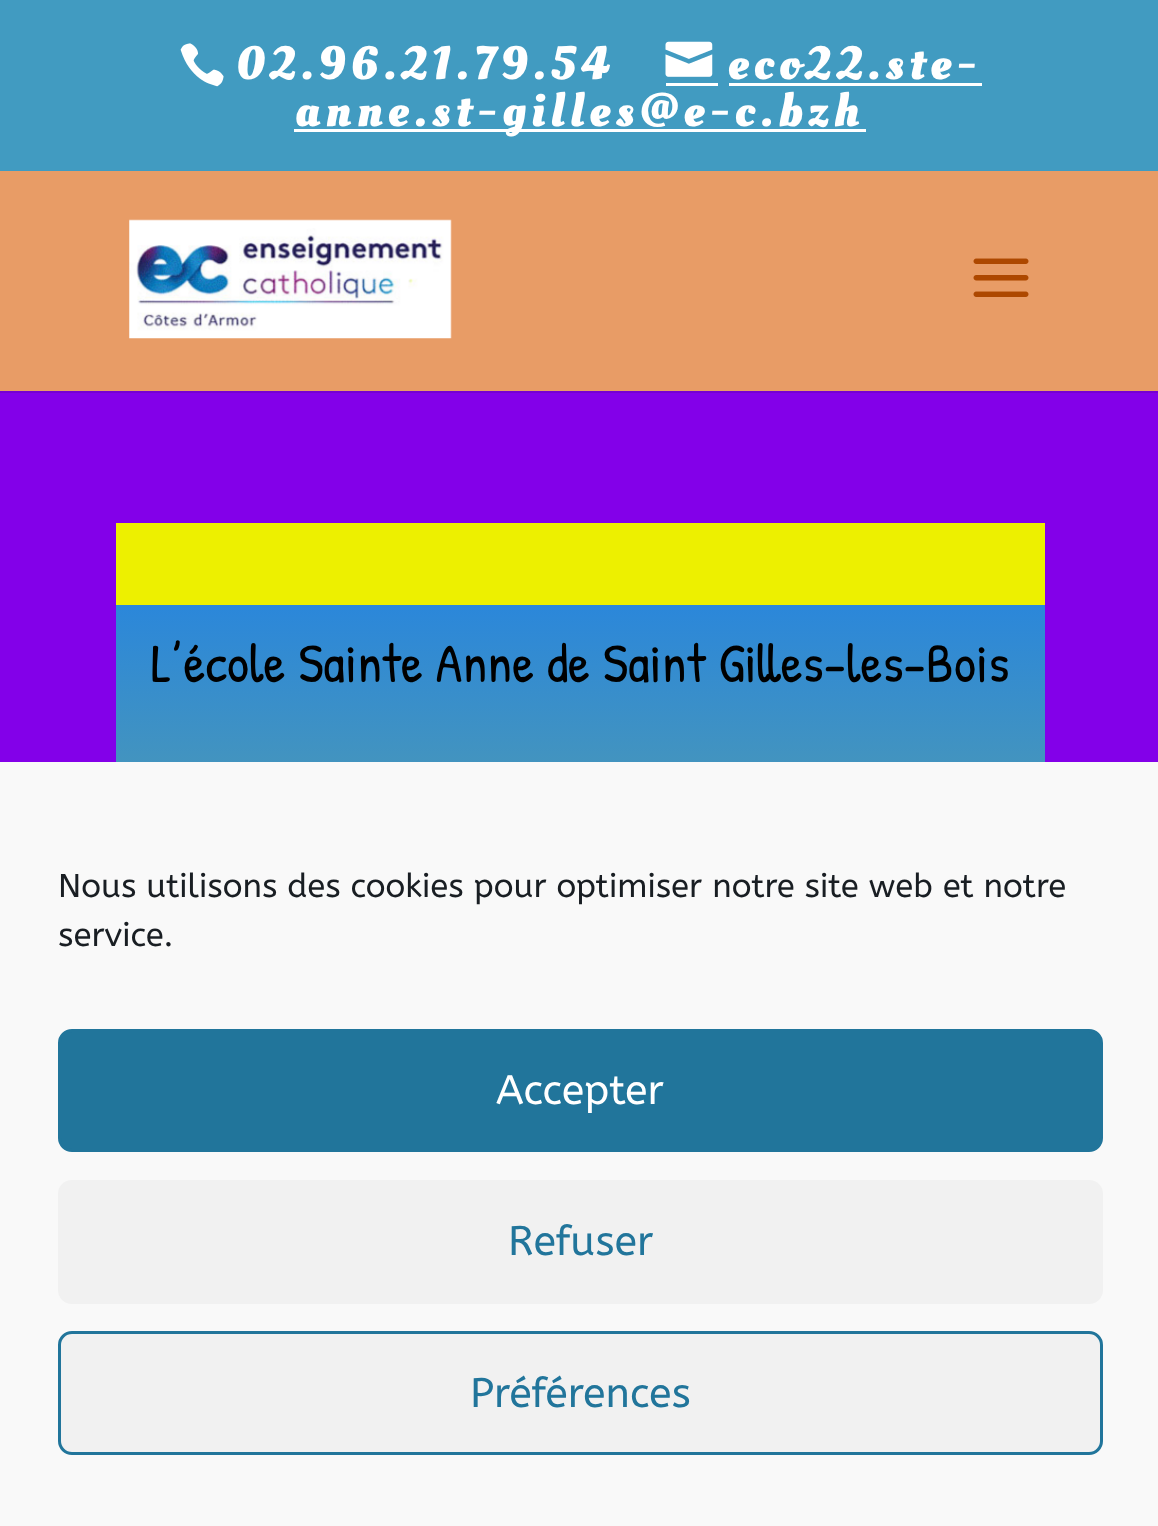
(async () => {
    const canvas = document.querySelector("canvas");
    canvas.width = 1158;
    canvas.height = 1526;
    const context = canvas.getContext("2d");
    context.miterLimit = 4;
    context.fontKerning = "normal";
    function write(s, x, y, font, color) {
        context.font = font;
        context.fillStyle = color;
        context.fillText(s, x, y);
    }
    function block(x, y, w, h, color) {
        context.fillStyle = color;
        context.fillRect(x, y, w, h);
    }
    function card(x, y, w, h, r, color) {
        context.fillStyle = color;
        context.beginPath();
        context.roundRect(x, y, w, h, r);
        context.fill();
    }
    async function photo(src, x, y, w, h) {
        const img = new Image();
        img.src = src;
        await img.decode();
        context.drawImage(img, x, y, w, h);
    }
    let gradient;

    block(0, 0, 1158, 1526, "rgb(131, 0, 233)");
    block(0, 0, 1158, 171, "rgb(65, 155, 193)");
    await photo("media/1.png", 180, 43, 44, 44);
    context.letterSpacing = "5.5px";
    write("02.96.21.79.54", 236, 79, "bold 46.75px Oleo Script Swash Caps", "rgb(255, 255, 255)");
    await photo("media/2.png", 665, 41, 48, 36);
    write("eco22.ste-", 728, 79, "bold 46.75px Oleo Script Swash Caps", "rgb(255, 255, 255)");
    block(666, 83, 52, 3, "rgb(255, 255, 255)");
    block(729, 83, 253, 3, "rgb(255, 255, 255)");
    block(294, 129, 572, 3, "rgb(255, 255, 255)");
    write("anne.st-gilles@e-c.bzh", 295, 126, "bold 46.75px Oleo Script Swash Caps", "rgb(255, 255, 255)");
    context.fillStyle = "rgb(118, 0, 210)";
    context.beginPath();
    context.moveTo(0, 390);
    context.lineTo(0, 393);
    context.lineTo(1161, 393);
    context.lineTo(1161, 173);
    context.lineTo(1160, 173);
    context.lineTo(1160, 390);
    context.closePath();
    context.fill();
    block(0, 171, 1158, 220, "rgb(232, 156, 102)");
    await photo("media/3.png", 129, 219, 323, 120);
    await photo("media/4.png", 973, 258, 56, 39);
    block(116, 523, 929, 82, "rgb(237, 240, 0)");
    gradient = context.createLinearGradient(580, 605, 580, 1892);
    gradient.addColorStop(0, "rgb(43, 135, 218)");
    gradient.addColorStop(1, "rgb(235, 239, 0)");
    context.fillStyle = gradient;
    context.fillRect(116, 605, 929, 157);
    context.letterSpacing = "0px";
    write("L’école Sainte Anne de Saint Gilles-les-Bois", 151, 682, "55px Patrick Hand", "rgb(0, 0, 0)");
    block(0, 762, 1158, 764, "rgb(249, 249, 249)");
    write("Nous utilisons des cookies pour optimiser notre site web et notre", 58, 897, "33px ABeeZee", "rgb(25, 30, 35)");
    write("service.", 58, 946, "33px ABeeZee", "rgb(25, 30, 35)");
    context.fillStyle = "rgb(33, 117, 155)";
    context.beginPath();
    context.roundRect(59.5, 1030.5, 1042, 120, 12.5);
    context.fill();
    context.strokeStyle = "rgb(33, 117, 155)";
    context.lineWidth = 3;
    context.stroke();
    write("Accepter", 496, 1104, "41.25px ABeeZee", "rgb(255, 255, 255)");
    card(58, 1180, 1045, 124, 14, "rgb(241, 241, 241)");
    write("Refuser", 508, 1255, "41.25px ABeeZee", "rgb(33, 117, 155)");
    context.fillStyle = "rgb(241, 241, 241)";
    context.beginPath();
    context.roundRect(59.5, 1332.5, 1042, 121, 12.5);
    context.fill();
    context.stroke();
    write("Préférences", 470, 1407, "41.25px ABeeZee", "rgb(33, 117, 155)");
})();
